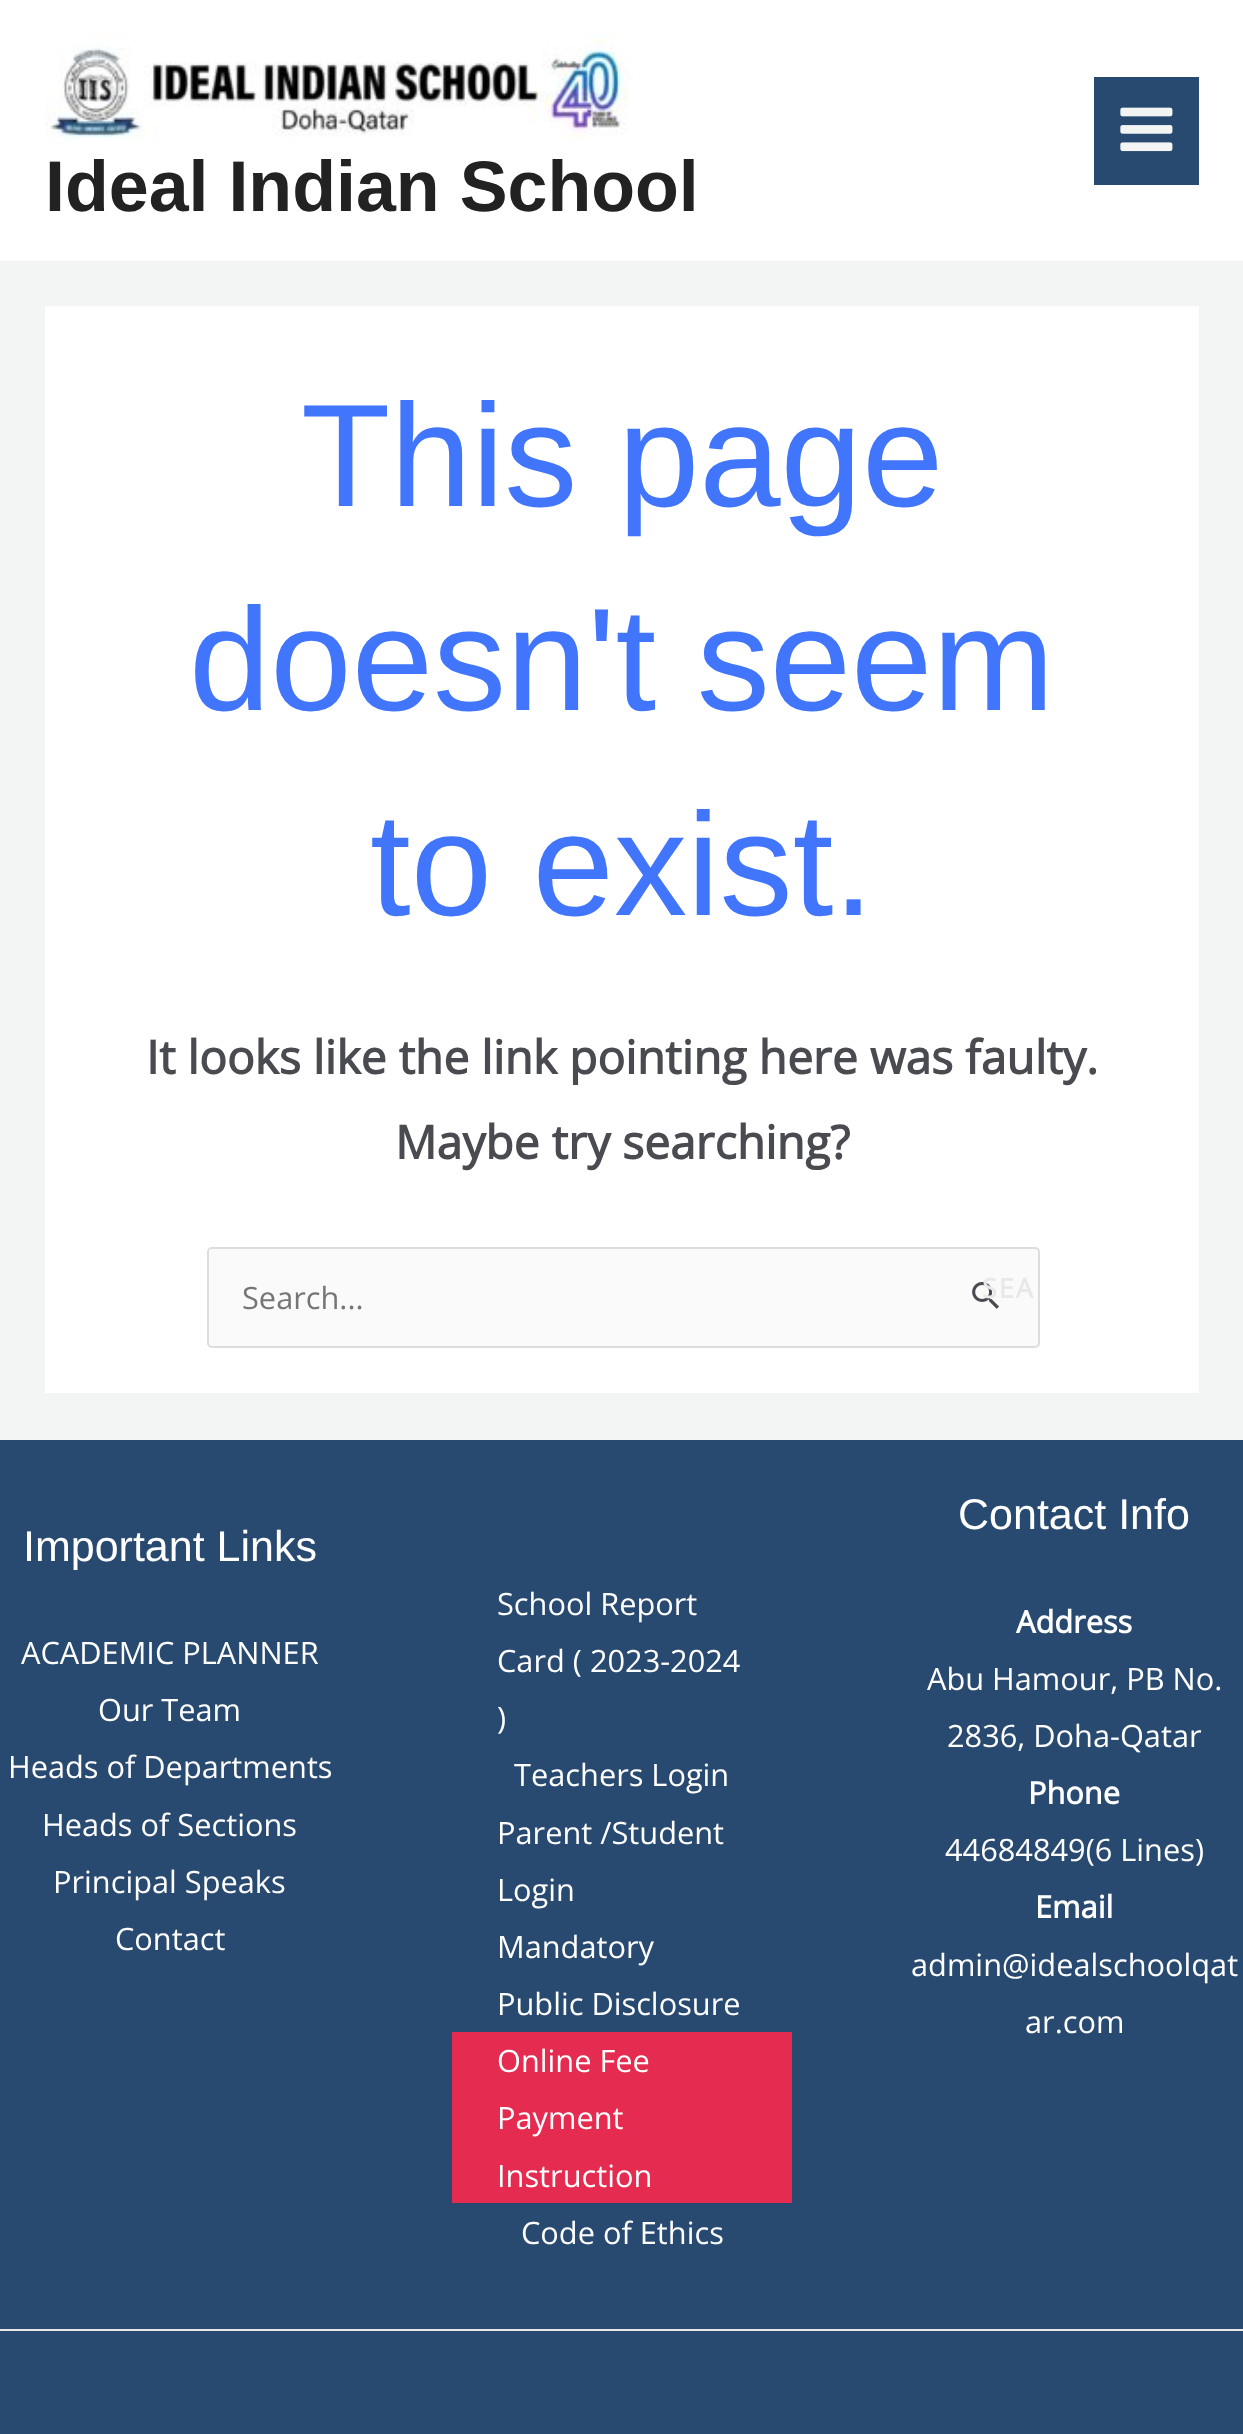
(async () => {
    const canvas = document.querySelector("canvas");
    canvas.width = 1243;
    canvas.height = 2434;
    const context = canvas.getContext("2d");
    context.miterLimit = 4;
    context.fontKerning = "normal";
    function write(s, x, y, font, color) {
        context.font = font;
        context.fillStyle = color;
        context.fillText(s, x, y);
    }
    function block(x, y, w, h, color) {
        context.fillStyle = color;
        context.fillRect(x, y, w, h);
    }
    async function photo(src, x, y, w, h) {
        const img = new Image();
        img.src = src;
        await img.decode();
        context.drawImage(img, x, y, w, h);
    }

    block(0, 0, 1243, 2434, "rgb(243, 245, 245)");
    block(0, 0, 1243, 261, "rgb(255, 255, 255)");
    await photo("media/1.png", 45, 32, 585, 109);
    write("Ideal Indian School", 45, 211, "bold 71.75px Liberation Sans", "rgb(34, 34, 34)");
    block(1094, 77, 105, 108, "rgb(41, 74, 112)");
    await photo("media/2.png", 1120, 107, 53, 45);
    block(45, 306, 1154, 1087, "rgb(255, 255, 255)");
    write("This page", 301, 506, "146.25px Liberation Sans", "rgb(65, 117, 252)");
    write("doesn't seem", 189, 710, "146.25px Liberation Sans", "rgb(65, 117, 252)");
    write("to exist.", 370, 915, "146.25px Liberation Sans", "rgb(65, 117, 252)");
    write("It looks like the link pointing here was faulty.", 146, 1074, "bold 46.2px Open Sans", "rgb(73, 75, 81)");
    write("Maybe try searching?", 395, 1159, "bold 46.2px Open Sans", "rgb(73, 75, 81)");
    context.fillStyle = "rgb(250, 250, 250)";
    context.beginPath();
    context.roundRect(208, 1248, 831, 99, 4);
    context.fill();
    context.strokeStyle = "rgb(221, 221, 221)";
    context.lineWidth = 2;
    context.stroke();
    await photo("media/3.png", 972, 1282, 27, 27);
    context.letterSpacing = "2px";
    write("SEA", 982, 1298, "bold 27px Open Sans", "rgb(232, 232, 233)");
    context.letterSpacing = "0px";
    write("Search...", 242, 1309, "30.75px Open Sans", "rgb(117, 117, 117)");
    block(0, 1440, 1243, 889, "rgb(41, 74, 112)");
    write("Important Links", 23, 1561, "43px Liberation Sans", "rgb(255, 255, 255)");
    write("ACADEMIC PLANNER", 21, 1664, "30.75px Open Sans", "rgb(255, 255, 255)");
    write("Our Team", 98, 1721, "30.75px Open Sans", "rgb(255, 255, 255)");
    write("Heads of Departments", 8, 1778, "30.75px Open Sans", "rgb(255, 255, 255)");
    write("Heads of Sections", 42, 1836, "30.75px Open Sans", "rgb(255, 255, 255)");
    write("Principal Speaks", 53, 1893, "30.75px Open Sans", "rgb(255, 255, 255)");
    write("Contact", 115, 1950, "30.75px Open Sans", "rgb(255, 255, 255)");
    write("School Report", 497, 1615, "30.75px Open Sans", "rgb(255, 255, 255)");
    write("Card ( 2023-2024", 497, 1672, "30.75px Open Sans", "rgb(255, 255, 255)");
    write(")", 497, 1729, "30.75px Open Sans", "rgb(255, 255, 255)");
    write("Teachers Login", 514, 1786, "30.75px Open Sans", "rgb(255, 255, 255)");
    write("Parent /Student", 497, 1844, "30.75px Open Sans", "rgb(255, 255, 255)");
    write("Login", 497, 1901, "30.75px Open Sans", "rgb(255, 255, 255)");
    write("Mandatory", 497, 1958, "30.75px Open Sans", "rgb(255, 255, 255)");
    write("Public Disclosure", 497, 2015, "30.75px Open Sans", "rgb(255, 255, 255)");
    block(452, 2032, 340, 171, "rgb(229, 43, 80)");
    write("Online Fee", 497, 2072, "30.75px Open Sans", "rgb(255, 255, 255)");
    write("Payment", 497, 2129, "30.75px Open Sans", "rgb(255, 255, 255)");
    write("Instruction", 497, 2187, "30.75px Open Sans", "rgb(255, 255, 255)");
    write("Code of Ethics", 521, 2244, "30.75px Open Sans", "rgb(255, 255, 255)");
    write("Contact Info", 958, 1529, "43px Liberation Sans", "rgb(255, 255, 255)");
    write("Address", 1016, 1633, "bold 30.75px Open Sans", "rgb(255, 255, 255)");
    write("Abu Hamour, PB No.", 927, 1690, "30.75px Open Sans", "rgb(255, 255, 255)");
    write("2836, Doha-Qatar", 947, 1747, "30.75px Open Sans", "rgb(255, 255, 255)");
    write("Phone", 1028, 1804, "bold 30.75px Open Sans", "rgb(255, 255, 255)");
    write("44684849(6 Lines)", 945, 1861, "30.75px Open Sans", "rgb(255, 255, 255)");
    write("Email", 1035, 1918, "bold 30.75px Open Sans", "rgb(255, 255, 255)");
    write("admin@idealschoolqat", 911, 1976, "30.75px Open Sans", "rgb(255, 255, 255)");
    write("ar.com", 1025, 2033, "30.75px Open Sans", "rgb(255, 255, 255)");
    block(0, 2331, 1243, 103, "rgb(41, 74, 112)");
    block(0, 2329, 1243, 2, "rgb(231, 231, 231)");
})();
